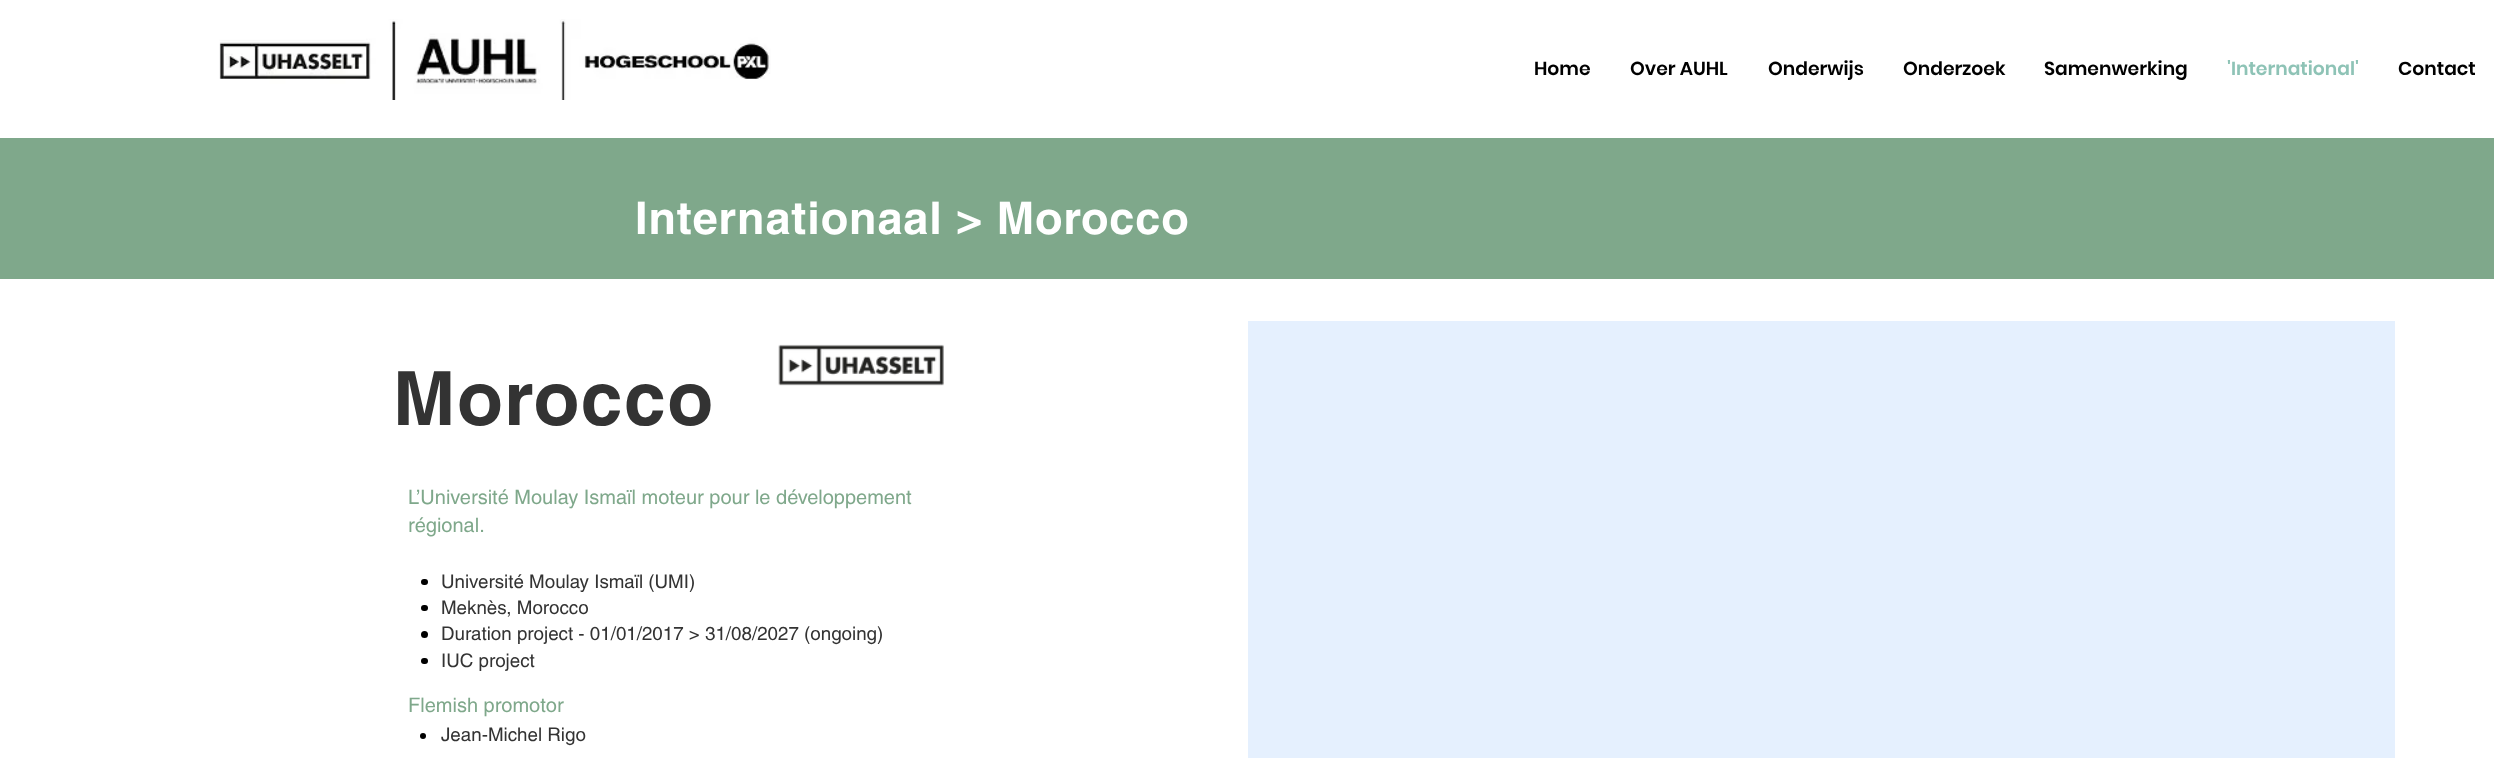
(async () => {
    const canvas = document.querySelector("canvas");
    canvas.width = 2494;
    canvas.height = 758;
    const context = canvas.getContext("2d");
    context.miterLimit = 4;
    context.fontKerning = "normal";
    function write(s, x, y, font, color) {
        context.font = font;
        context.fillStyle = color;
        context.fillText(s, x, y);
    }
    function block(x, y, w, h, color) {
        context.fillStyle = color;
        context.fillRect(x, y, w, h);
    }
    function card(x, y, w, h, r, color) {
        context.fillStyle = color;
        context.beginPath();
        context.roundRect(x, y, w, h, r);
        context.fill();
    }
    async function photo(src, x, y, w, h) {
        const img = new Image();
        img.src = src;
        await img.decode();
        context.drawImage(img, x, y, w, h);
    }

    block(0, 0, 2494, 758, "rgb(255, 255, 255)");
    await photo("media/1.png", 219, 19, 552, 81);
    write("Home", 1534, 75, "600 18.75px Poppins", "rgb(0, 0, 0)");
    write("Over AUHL", 1630, 75, "600 18.75px Poppins", "rgb(0, 0, 0)");
    write("Onderwijs", 1768, 75, "600 18.75px Poppins", "rgb(0, 0, 0)");
    write("Onderzoek", 1903, 75, "600 18.75px Poppins", "rgb(0, 0, 0)");
    write("Samenwerking", 2044, 75, "600 18.75px Poppins", "rgb(0, 0, 0)");
    write("'International'", 2227, 75, "600 18.75px Poppins", "rgb(142, 195, 182)");
    write("Contact", 2398, 75, "600 18.75px Poppins", "rgb(0, 0, 0)");
    block(0, 138, 2494, 141, "rgb(127, 168, 139)");
    context.letterSpacing = "0.9px";
    write("Internationaal > Morocco", 635, 234, "bold 45px helvetica", "rgb(255, 255, 255)");
    await photo("media/2.png", 778, 344, 166, 42);
    context.letterSpacing = "1.5px";
    write("Morocco", 393, 425, "bold 75px helvetica", "rgb(51, 51, 51)");
    context.letterSpacing = "0px";
    write("L’Université Moulay Ismaïl moteur pour le développement", 408, 504, "20px helvetica", "rgb(127, 168, 139)");
    write("régional.", 408, 532, "20px helvetica", "rgb(127, 168, 139)");
    card(421, 579, 7, 6, 3, "rgb(0, 0, 0)");
    write("Université Moulay Ismaïl (UMI)", 441, 588, "18.75px helvetica", "rgb(51, 51, 51)");
    card(421, 605, 7, 6, 3, "rgb(0, 0, 0)");
    write("Meknès, Morocco", 441, 614, "18.75px helvetica", "rgb(51, 51, 51)");
    context.fillStyle = "rgb(0, 0, 0)";
    context.beginPath();
    context.arc(424.5, 634.5, 3.5, 0, Math.PI * 2);
    context.fill();
    write("Duration project - 01/01/2017 > 31/08/2027 (ongoing)", 441, 640, "18.75px helvetica", "rgb(51, 51, 51)");
    card(421, 658, 7, 6, 3, "rgb(0, 0, 0)");
    write("IUC project", 441, 667, "18.75px helvetica", "rgb(51, 51, 51)");
    write("Flemish promotor", 408, 712, "20px helvetica", "rgb(127, 168, 139)");
    context.fillStyle = "rgb(0, 0, 0)";
    context.beginPath();
    context.arc(423, 736, 3, 0, Math.PI * 2);
    context.fill();
    write("Jean-Michel Rigo", 441, 741, "18.75px helvetica", "rgb(51, 51, 51)");
    block(1248, 321, 1147, 437, "rgb(229, 240, 254)");
})();
